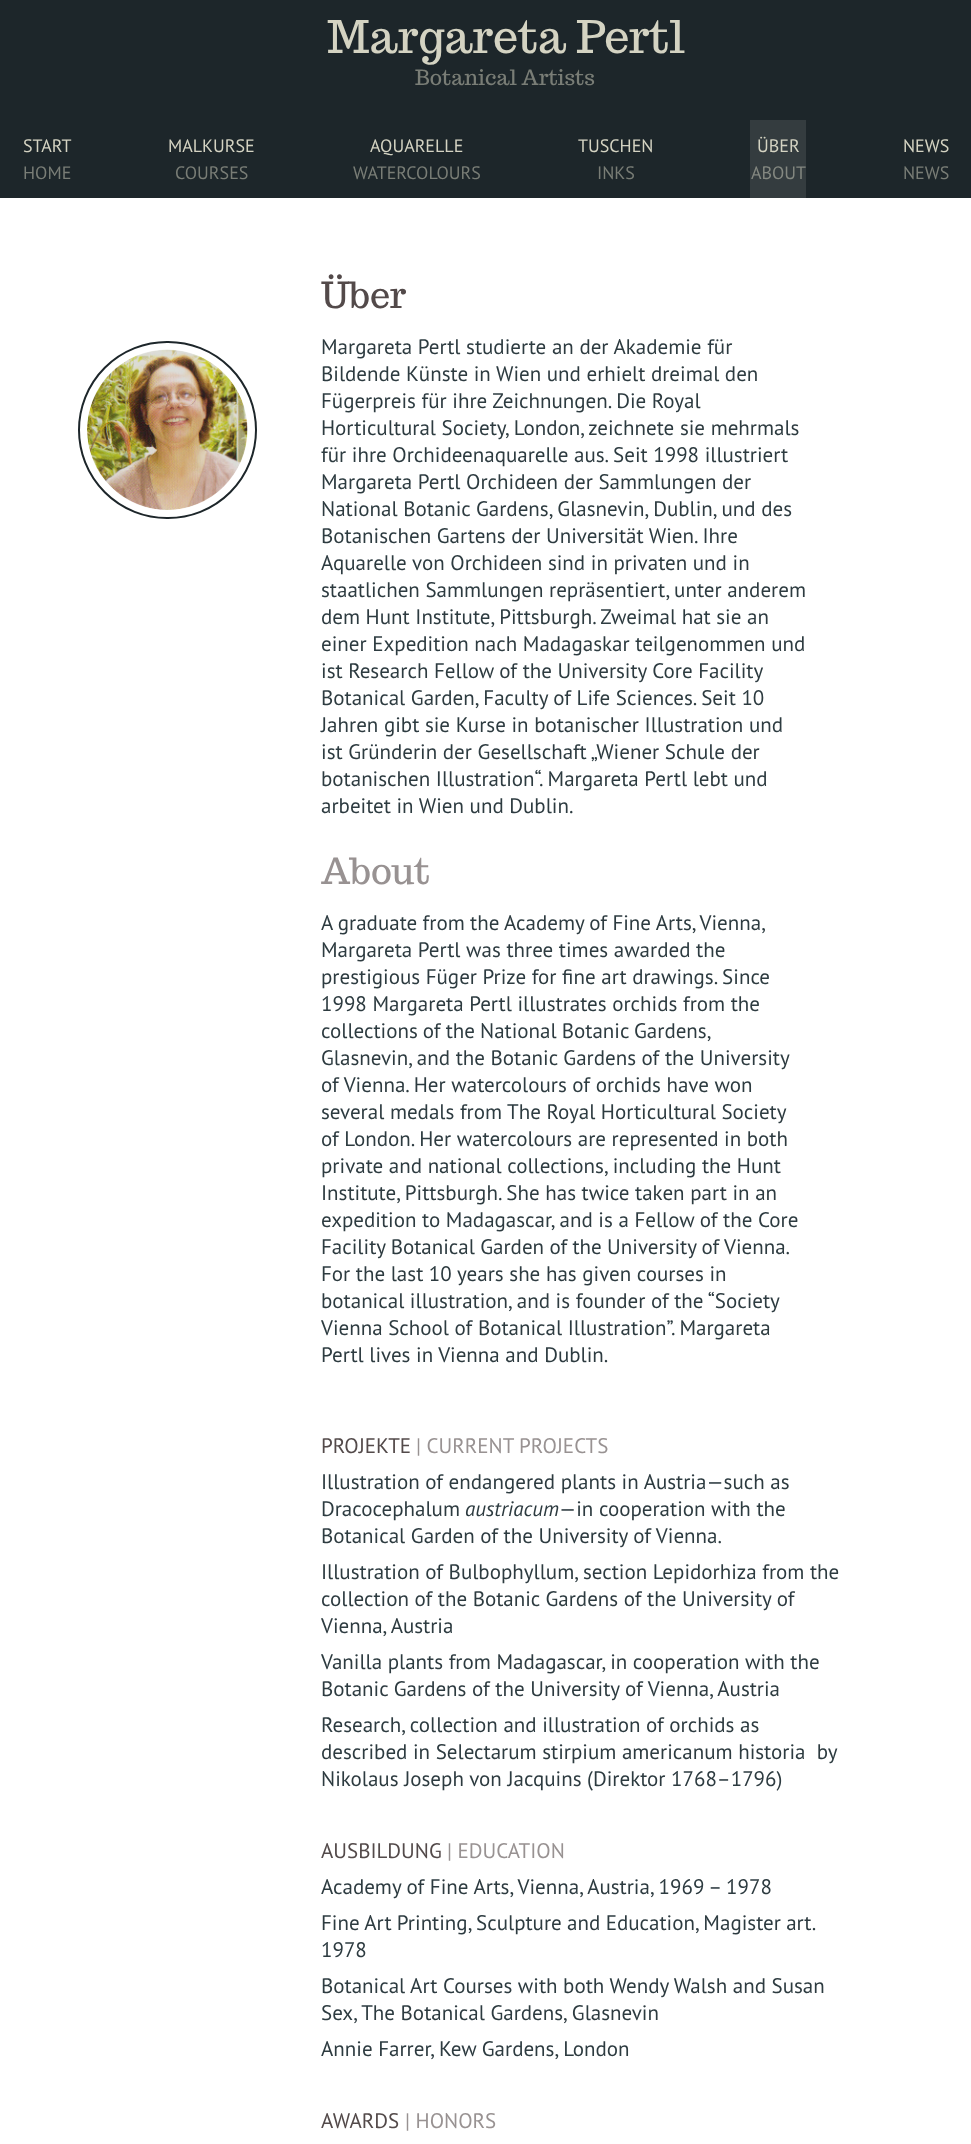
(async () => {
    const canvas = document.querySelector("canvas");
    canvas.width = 971;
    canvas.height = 2144;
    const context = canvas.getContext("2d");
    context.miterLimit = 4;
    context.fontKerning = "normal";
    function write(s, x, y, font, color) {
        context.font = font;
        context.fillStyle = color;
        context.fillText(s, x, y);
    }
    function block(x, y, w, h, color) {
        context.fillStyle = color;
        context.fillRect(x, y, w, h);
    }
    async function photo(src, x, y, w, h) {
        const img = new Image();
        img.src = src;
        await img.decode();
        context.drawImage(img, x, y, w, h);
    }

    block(0, 0, 971, 2144, "rgb(255, 255, 255)");
    block(0, 0, 971, 198, "rgb(29, 38, 42)");
    write("Margareta Pertl", 327, 53, "45px Trocchi", "rgb(212, 211, 194)");
    write("Botanical Artists", 415, 85, "21px Trocchi", "rgb(121, 125, 118)");
    write("START", 23, 152, "18px PT Sans", "rgb(212, 211, 194)");
    write("HOME", 23, 179, "18px PT Sans", "rgb(121, 125, 118)");
    write("MALKURSE", 168, 152, "18px PT Sans", "rgb(212, 211, 194)");
    write("COURSES", 175, 179, "18px PT Sans", "rgb(121, 125, 118)");
    write("AQUARELLE", 370, 152, "18px PT Sans", "rgb(212, 211, 194)");
    write("WATERCOLOURS", 353, 179, "18px PT Sans", "rgb(121, 125, 118)");
    write("TUSCHEN", 578, 152, "18px PT Sans", "rgb(212, 211, 194)");
    write("INKS", 597, 179, "18px PT Sans", "rgb(121, 125, 118)");
    block(750, 120, 56, 78, "rgb(52, 60, 63)");
    write("ÜBER", 757, 152, "18px PT Sans", "rgb(212, 211, 194)");
    write("ABOUT", 751, 179, "18px PT Sans", "rgb(132, 136, 129)");
    write("NEWS", 903, 152, "18px PT Sans", "rgb(212, 211, 194)");
    write("NEWS", 903, 179, "18px PT Sans", "rgb(121, 125, 118)");
    context.beginPath();
    context.roundRect(79, 342, 177, 176, 88);
    context.strokeStyle = "rgb(29, 38, 42)";
    context.lineWidth = 2;
    context.stroke();
    await photo("media/1.png", 87, 349, 161, 161);
    write("Über", 321, 308, "36px Trocchi", "rgb(83, 74, 74)");
    write("Margareta Pertl studierte an der Akademie für", 321, 354, "21px PT Sans", "rgb(45, 59, 64)");
    write("Bildende Künste in Wien und erhielt dreimal den", 321, 381, "21px PT Sans", "rgb(45, 59, 64)");
    write("Fügerpreis für ihre Zeichnungen. Die Royal", 321, 408, "21px PT Sans", "rgb(45, 59, 64)");
    write("Horticultural Society, London, zeichnete sie mehrmals", 321, 435, "21px PT Sans", "rgb(45, 59, 64)");
    write("für ihre Orchideenaquarelle aus. Seit 1998 illustriert", 321, 462, "21px PT Sans", "rgb(45, 59, 64)");
    write("Margareta Pertl Orchideen der Sammlungen der", 321, 489, "21px PT Sans", "rgb(45, 59, 64)");
    write("National Botanic Gardens, Glasnevin, Dublin, und des", 321, 516, "21px PT Sans", "rgb(45, 59, 64)");
    write("Botanischen Gartens der Universität Wien. Ihre", 321, 543, "21px PT Sans", "rgb(45, 59, 64)");
    write("Aquarelle von Orchideen sind in privaten und in", 321, 570, "21px PT Sans", "rgb(45, 59, 64)");
    write("staatlichen Sammlungen repräsentiert, unter anderem", 321, 597, "21px PT Sans", "rgb(45, 59, 64)");
    write("dem Hunt Institute, Pittsburgh. Zweimal hat sie an", 321, 624, "21px PT Sans", "rgb(45, 59, 64)");
    write("einer Expedition nach Madagaskar teilgenommen und", 321, 651, "21px PT Sans", "rgb(45, 59, 64)");
    write("ist Research Fellow of the University Core Facility", 321, 678, "21px PT Sans", "rgb(45, 59, 64)");
    write("Botanical Garden, Faculty of Life Sciences. Seit 10", 321, 705, "21px PT Sans", "rgb(45, 59, 64)");
    write("Jahren gibt sie Kurse in botanischer Illustration und", 321, 732, "21px PT Sans", "rgb(45, 59, 64)");
    write("ist Gründerin der Gesellschaft „Wiener Schule der", 321, 759, "21px PT Sans", "rgb(45, 59, 64)");
    write("botanischen Illustration“. Margareta Pertl lebt und", 321, 786, "21px PT Sans", "rgb(45, 59, 64)");
    write("arbeitet in Wien und Dublin.", 321, 813, "21px PT Sans", "rgb(45, 59, 64)");
    write("About", 321, 884, "36px Trocchi", "rgb(152, 146, 146)");
    context.wordSpacing = "-0.25px";
    write("A graduate from the Academy of Fine Arts, Vienna,", 321, 930, "21px PT Sans", "rgb(45, 59, 64)");
    context.wordSpacing = "0px";
    write("Margareta Pertl was three times awarded the", 321, 957, "21px PT Sans", "rgb(45, 59, 64)");
    write("prestigious Füger Prize for fine art drawings. Since", 321, 984, "21px PT Sans", "rgb(45, 59, 64)");
    write("1998 Margareta Pertl illustrates orchids from the", 321, 1011, "21px PT Sans", "rgb(45, 59, 64)");
    context.wordSpacing = "-0.5px";
    write("collections of the National Botanic Gardens,", 321, 1038, "21px PT Sans", "rgb(45, 59, 64)");
    context.wordSpacing = "0px";
    write("Glasnevin, and the Botanic Gardens of the University", 321, 1065, "21px PT Sans", "rgb(45, 59, 64)");
    write("of Vienna. Her watercolours of orchids have won", 321, 1092, "21px PT Sans", "rgb(45, 59, 64)");
    write("several medals from The Royal Horticultural Society", 321, 1119, "21px PT Sans", "rgb(45, 59, 64)");
    write("of London. Her watercolours are represented in both", 321, 1146, "21px PT Sans", "rgb(45, 59, 64)");
    write("private and national collections, including the Hunt", 321, 1173, "21px PT Sans", "rgb(45, 59, 64)");
    write("Institute, Pittsburgh. She has twice taken part in an", 321, 1200, "21px PT Sans", "rgb(45, 59, 64)");
    write("expedition to Madagascar, and is a Fellow of the Core", 321, 1227, "21px PT Sans", "rgb(45, 59, 64)");
    context.wordSpacing = "-0.25px";
    write("Facility Botanical Garden of the University of Vienna.", 321, 1254, "21px PT Sans", "rgb(45, 59, 64)");
    context.wordSpacing = "0px";
    write("For the last 10 years she has given courses in", 321, 1281, "21px PT Sans", "rgb(45, 59, 64)");
    write("botanical illustration, and is founder of the “Society", 321, 1308, "21px PT Sans", "rgb(45, 59, 64)");
    write("Vienna School of Botanical Illustration”. Margareta", 321, 1335, "21px PT Sans", "rgb(45, 59, 64)");
    write("Pertl lives in Vienna and Dublin.", 321, 1362, "21px PT Sans", "rgb(45, 59, 64)");
    write("PROJEKTE", 321, 1453, "21px PT Sans", "rgb(83, 74, 74)");
    write("| CURRENT PROJECTS", 416, 1453, "21px PT Sans", "rgb(152, 146, 146)");
    write("Illustration of endangered plants in Austria—such as", 321, 1489, "21px PT Sans", "rgb(45, 59, 64)");
    write("Dracocephalum", 321, 1516, "21px PT Sans", "rgb(45, 59, 64)");
    write("austriacum", 465, 1516, "italic 21px PT Sans", "rgb(45, 59, 64)");
    write("—in cooperation with the", 559, 1516, "21px PT Sans", "rgb(45, 59, 64)");
    write("Botanical Garden of the University of Vienna.", 321, 1543, "21px PT Sans", "rgb(45, 59, 64)");
    write("Illustration of Bulbophyllum, section Lepidorhiza from the", 321, 1579, "21px PT Sans", "rgb(45, 59, 64)");
    write("collection of the Botanic Gardens of the University of", 321, 1606, "21px PT Sans", "rgb(45, 59, 64)");
    write("Vienna, Austria", 321, 1633, "21px PT Sans", "rgb(45, 59, 64)");
    write("Vanilla plants from Madagascar, in cooperation with the", 321, 1669, "21px PT Sans", "rgb(45, 59, 64)");
    write("Botanic Gardens of the University of Vienna, Austria", 321, 1696, "21px PT Sans", "rgb(45, 59, 64)");
    write("Research, collection and illustration of orchids as", 321, 1732, "21px PT Sans", "rgb(45, 59, 64)");
    write("described in Selectarum stirpium americanum historia  by", 321, 1759, "21px PT Sans", "rgb(45, 59, 64)");
    write("Nikolaus Joseph von Jacquins (Direktor 1768–1796)", 321, 1786, "21px PT Sans", "rgb(45, 59, 64)");
    write("AUSBILDUNG", 321, 1858, "21px PT Sans", "rgb(83, 74, 74)");
    write("| EDUCATION", 447, 1858, "21px PT Sans", "rgb(152, 146, 146)");
    write("Academy of Fine Arts, Vienna, Austria, 1969 – 1978", 321, 1894, "21px PT Sans", "rgb(45, 59, 64)");
    context.wordSpacing = "-0.25px";
    write("Fine Art Printing, Sculpture and Education, Magister art.", 321, 1930, "21px PT Sans", "rgb(45, 59, 64)");
    context.wordSpacing = "0px";
    write("1978", 321, 1957, "21px PT Sans", "rgb(45, 59, 64)");
    write("Botanical Art Courses with both Wendy Walsh and Susan", 321, 1993, "21px PT Sans", "rgb(45, 59, 64)");
    write("Sex, The Botanical Gardens, Glasnevin", 321, 2020, "21px PT Sans", "rgb(45, 59, 64)");
    write("Annie Farrer, Kew Gardens, London", 321, 2056, "21px PT Sans", "rgb(45, 59, 64)");
    write("AWARDS", 321, 2128, "21px PT Sans", "rgb(83, 74, 74)");
    write("| HONORS", 405, 2128, "21px PT Sans", "rgb(152, 146, 146)");
})();
